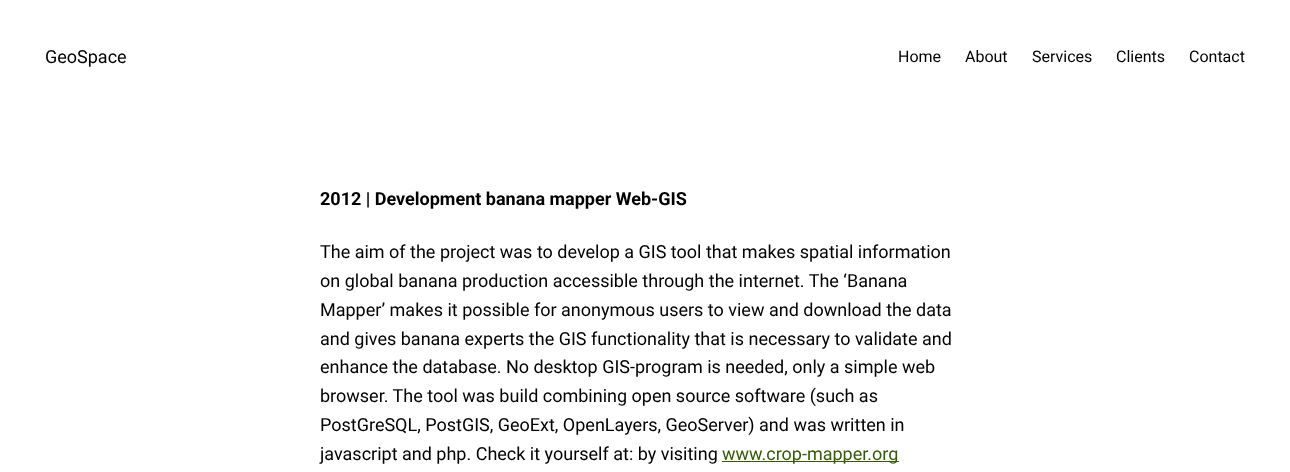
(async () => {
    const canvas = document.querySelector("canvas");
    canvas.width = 1290;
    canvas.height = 472;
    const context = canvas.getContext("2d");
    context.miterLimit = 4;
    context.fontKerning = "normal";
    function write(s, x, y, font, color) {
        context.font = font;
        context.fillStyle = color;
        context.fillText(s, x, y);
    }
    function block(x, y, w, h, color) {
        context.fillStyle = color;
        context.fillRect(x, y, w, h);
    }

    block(0, 0, 1290, 472, "rgb(255, 255, 255)");
    write("GeoSpace", 45, 63, "18px Roboto", "rgb(0, 0, 0)");
    write("Home", 898, 62, "16px Roboto", "rgb(0, 0, 0)");
    write("About", 965, 62, "16px Roboto", "rgb(0, 0, 0)");
    write("Services", 1032, 62, "16px Roboto", "rgb(0, 0, 0)");
    write("Clients", 1116, 62, "16px Roboto", "rgb(0, 0, 0)");
    write("Contact", 1189, 62, "16px Roboto", "rgb(0, 0, 0)");
    write("2012 | Development banana mapper Web-GIS", 320, 205, "bold 18px Roboto", "rgb(0, 0, 0)");
    write("The aim of the project was to develop a GIS tool that makes spatial information", 320, 258, "18px Roboto", "rgb(0, 0, 0)");
    write("on global banana production accessible through the internet. The ‘Banana", 320, 287, "18px Roboto", "rgb(0, 0, 0)");
    write("Mapper’ makes it possible for anonymous users to view and download the data", 320, 316, "18px Roboto", "rgb(0, 0, 0)");
    write("and gives banana experts the GIS functionality that is necessary to validate and", 320, 345, "18px Roboto", "rgb(0, 0, 0)");
    write("enhance the database. No desktop GIS-program is needed, only a simple web", 320, 373, "18px Roboto", "rgb(0, 0, 0)");
    write("browser. The tool was build combining open source software (such as", 320, 402, "18px Roboto", "rgb(0, 0, 0)");
    write("PostGreSQL, PostGIS, GeoExt, OpenLayers, GeoServer) and was written in", 320, 431, "18px Roboto", "rgb(0, 0, 0)");
    write("javascript and php. Check it yourself at: by visiting", 320, 460, "18px Roboto", "rgb(0, 0, 0)");
    block(722, 461, 177, 1, "rgb(52, 92, 0)");
    write("www.crop-mapper.org", 722, 460, "18px Roboto", "rgb(52, 92, 0)");
})();
